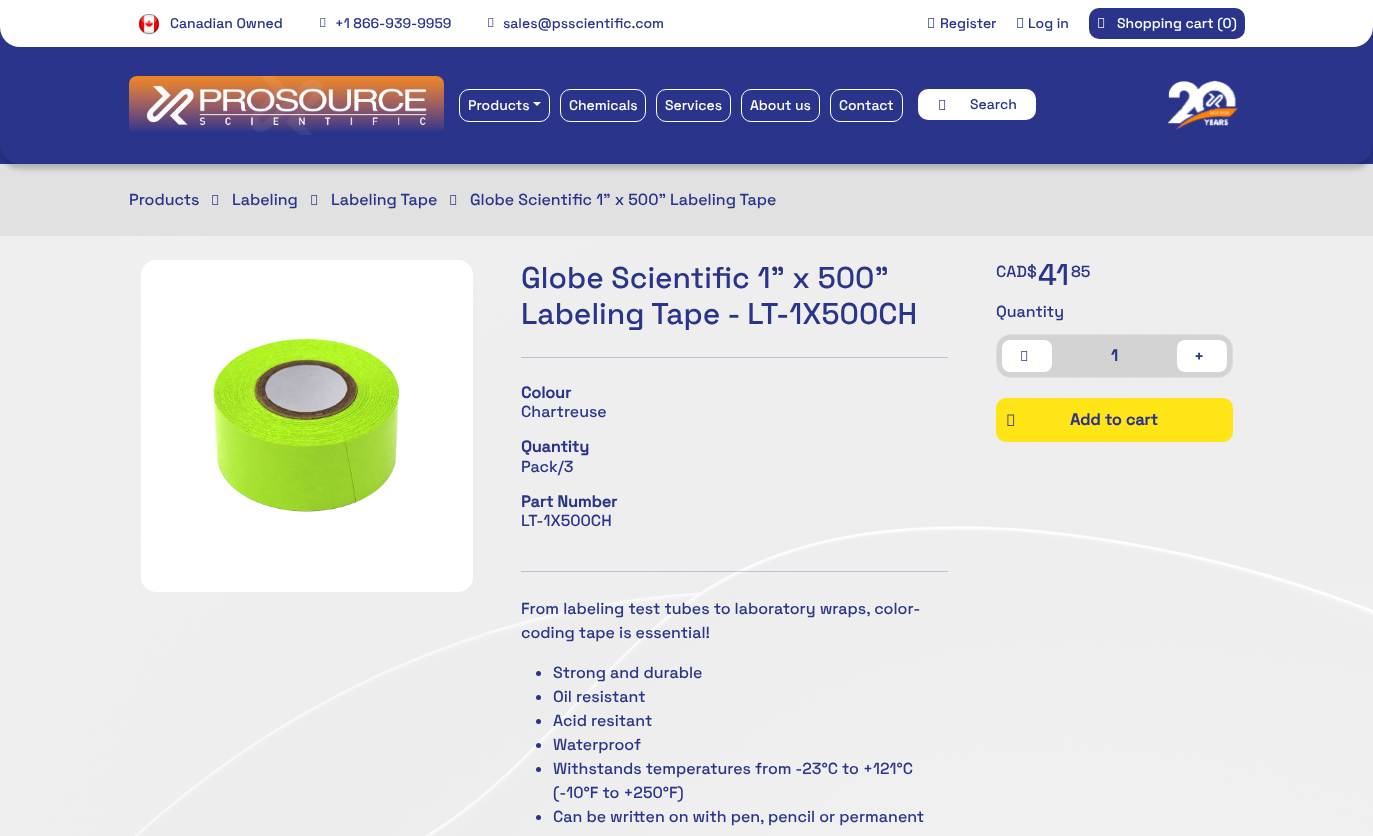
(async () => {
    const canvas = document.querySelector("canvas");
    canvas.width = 1373;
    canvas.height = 836;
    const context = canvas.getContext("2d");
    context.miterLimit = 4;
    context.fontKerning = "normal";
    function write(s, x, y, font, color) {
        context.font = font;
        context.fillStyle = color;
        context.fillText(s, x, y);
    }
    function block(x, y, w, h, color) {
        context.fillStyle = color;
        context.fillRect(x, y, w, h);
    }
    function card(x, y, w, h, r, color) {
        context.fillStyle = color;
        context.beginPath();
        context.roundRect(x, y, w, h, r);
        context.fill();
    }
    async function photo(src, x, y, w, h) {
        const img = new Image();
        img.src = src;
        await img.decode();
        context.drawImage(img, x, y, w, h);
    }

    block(0, 0, 1373, 836, "rgb(42, 52, 139)");
    context.fillStyle = "rgb(255, 255, 255)";
    context.beginPath();
    context.roundRect(0, 0, 1373, 47, [0, 0, 20, 20]);
    context.fill();
    await photo("media/1.png", 138, 14, 21, 21);
    write("Canadian Owned", 170, 28, "300 14px Space Grotesk", "rgb(42, 52, 139)");
    await photo("media/2.png", 320, 18, 6, 9);
    write("+1 866-939-9959", 335, 28, "300 14px Space Grotesk", "rgb(42, 52, 139)");
    await photo("media/2.png", 488, 18, 6, 9);
    write("sales@psscientific.com", 503, 28, "300 14px Space Grotesk", "rgb(42, 52, 139)");
    await photo("media/3.png", 928, 18, 7, 10);
    write("Register", 940, 28, "300 14px Space Grotesk", "rgb(42, 52, 139)");
    await photo("media/3.png", 1017, 18, 7, 10);
    write("Log in", 1028, 28, "300 14px Space Grotesk", "rgb(42, 52, 139)");
    card(1089, 8, 156, 31, 10, "rgb(42, 52, 139)");
    await photo("media/4.png", 1098, 18, 7, 10);
    write("Shopping cart (0)", 1117, 28, "300 14px Space Grotesk", "rgb(255, 255, 255)");
    block(0, 164, 1373, 72, "rgb(225, 225, 225)");
    context.fillStyle = "rgba(0, 0, 0, 0.2)";
    context.filter = "blur(2.5px)";
    context.beginPath();
    context.roundRect(0, 52, 1373, 117, 20);
    context.fill();
    context.filter = "none";
    context.fillStyle = "rgb(42, 52, 139)";
    context.beginPath();
    context.roundRect(0, 47, 1373, 117, [0, 0, 20, 20]);
    context.fill();
    await photo("media/5.png", 129, 76, 315, 59);
    context.beginPath();
    context.roundRect(459.5, 89.5, 90, 32, 9.5);
    context.strokeStyle = "rgb(255, 255, 255)";
    context.stroke();
    write("Products", 468, 110, "300 14px Space Grotesk", "rgb(255, 255, 255)");
    context.beginPath();
    context.moveTo(533, 102);
    context.lineTo(541, 102);
    context.lineTo(537, 106);
    context.closePath();
    context.fill();
    context.beginPath();
    context.roundRect(560.5, 89.5, 85, 32, 9.5);
    context.stroke();
    write("Chemicals", 569, 110, "300 14px Space Grotesk", "rgb(255, 255, 255)");
    context.beginPath();
    context.roundRect(656.5, 89.5, 74, 32, 9.5);
    context.stroke();
    write("Services", 665, 110, "300 14px Space Grotesk", "rgb(255, 255, 255)");
    context.beginPath();
    context.roundRect(741.5, 89.5, 78, 32, 9.5);
    context.stroke();
    write("About us", 750, 110, "300 14px Space Grotesk", "rgb(255, 255, 255)");
    context.beginPath();
    context.roundRect(830.5, 89.5, 72, 32, 9.5);
    context.stroke();
    write("Contact", 839, 110, "300 14px Space Grotesk", "rgb(255, 255, 255)");
    card(918, 89, 118, 31, 10, "rgb(255, 255, 255)");
    await photo("media/6.png", 939, 100, 7, 10);
    write("Search", 970, 109, "300 14px Space Grotesk", "rgb(42, 52, 139)");
    await photo("media/7.png", 1167, 80, 71, 50);
    write("Products", 129, 205, "300 16px Space Grotesk", "rgb(42, 52, 139)");
    await photo("media/8.png", 212, 195, 7, 10);
    write("Labeling", 232, 205, "300 16px Space Grotesk", "rgb(42, 52, 139)");
    await photo("media/8.png", 311, 195, 7, 10);
    write("Labeling Tape", 331, 205, "300 16px Space Grotesk", "rgb(42, 52, 139)");
    await photo("media/8.png", 450, 195, 7, 10);
    write("Globe Scientific 1\" x 500\" Labeling Tape", 470, 205, "300 16px Space Grotesk", "rgb(42, 52, 139)");
    await photo("media/9.png", 0, 236, 1373, 600);
    card(141, 260, 332, 332, 15, "rgb(255, 255, 255)");
    await photo("media/10.png", 213, 338, 187, 174);
    write("Globe Scientific 1\" x 500\"", 521, 288, "300 30px Space Grotesk", "rgb(42, 52, 139)");
    write("Labeling Tape - LT-1X500CH", 521, 324, "300 30px Space Grotesk", "rgb(42, 52, 139)");
    block(521, 357, 427, 1, "rgb(189, 191, 213)");
    write("Colour", 521, 398, "bold 16px Space Grotesk", "rgb(42, 52, 139)");
    write("Chartreuse", 521, 417, "300 16px Space Grotesk", "rgb(42, 52, 139)");
    write("Quantity", 521, 452, "bold 16px Space Grotesk", "rgb(42, 52, 139)");
    write("Pack/3", 521, 472, "300 16px Space Grotesk", "rgb(42, 52, 139)");
    write("Part Number", 521, 507, "bold 16px Space Grotesk", "rgb(42, 52, 139)");
    write("LT-1X500CH", 521, 526, "300 16px Space Grotesk", "rgb(42, 52, 139)");
    block(521, 571, 427, 1, "rgba(42, 52, 139, 0.25)");
    write("From labeling test tubes to laboratory wraps, color-", 521, 614, "300 16px Space Grotesk", "rgb(42, 52, 139)");
    write("coding tape is essential!", 521, 638, "300 16px Space Grotesk", "rgb(42, 52, 139)");
    context.beginPath();
    context.arc(538.5, 673.5, 2.5, 0, Math.PI * 2);
    context.fill();
    write("Strong and durable", 553, 678, "300 16px Space Grotesk", "rgb(42, 52, 139)");
    context.beginPath();
    context.arc(538.5, 697.5, 2.5, 0, Math.PI * 2);
    context.fill();
    write("Oil resistant", 553, 702, "300 16px Space Grotesk", "rgb(42, 52, 139)");
    context.beginPath();
    context.arc(538.5, 721.5, 2.5, 0, Math.PI * 2);
    context.fill();
    write("Acid resitant", 553, 726, "300 16px Space Grotesk", "rgb(42, 52, 139)");
    context.beginPath();
    context.arc(538.5, 745.5, 2.5, 0, Math.PI * 2);
    context.fill();
    write("Waterproof", 553, 750, "300 16px Space Grotesk", "rgb(42, 52, 139)");
    context.beginPath();
    context.arc(538.5, 769.5, 2.5, 0, Math.PI * 2);
    context.fill();
    write("Withstands temperatures from -23°C to +121°C", 553, 774, "300 16px Space Grotesk", "rgb(42, 52, 139)");
    write("(-10°F to +250°F)", 553, 798, "300 16px Space Grotesk", "rgb(42, 52, 139)");
    context.beginPath();
    context.arc(538.5, 817.5, 2.5, 0, Math.PI * 2);
    context.fill();
    write("Can be written on with pen, pencil or permanent", 553, 822, "300 16px Space Grotesk", "rgb(42, 52, 139)");
    write("CAD$", 996, 277, "300 16px Space Grotesk", "rgb(42, 52, 139)");
    write("41", 1038, 285, "300 30px Space Grotesk", "rgb(42, 52, 139)");
    write("85", 1071, 277, "300 16px Space Grotesk", "rgb(42, 52, 139)");
    write("Quantity", 996, 317, "300 16px Space Grotesk", "rgb(42, 52, 139)");
    context.fillStyle = "rgb(211, 211, 211)";
    context.beginPath();
    context.roundRect(996.5, 334.5, 236, 43, 14.5);
    context.fill();
    context.strokeStyle = "rgb(221, 221, 221)";
    context.stroke();
    card(1002, 340, 50, 32, 8, "rgb(255, 255, 255)");
    await photo("media/3.png", 1021, 351, 7, 10);
    write("1", 1111, 361, "bold 16px Space Grotesk", "rgb(42, 52, 139)");
    card(1177, 340, 50, 32, 8, "rgb(255, 255, 255)");
    write("+", 1195, 361, "900 14px Noto Sans", "rgb(42, 52, 139)");
    card(996, 398, 237, 44, 10, "rgb(255, 228, 22)");
    await photo("media/11.png", 1007, 414, 8, 12);
    write("Add to cart", 1070, 425, "bold 16px Space Grotesk", "rgb(42, 52, 139)");
})();
